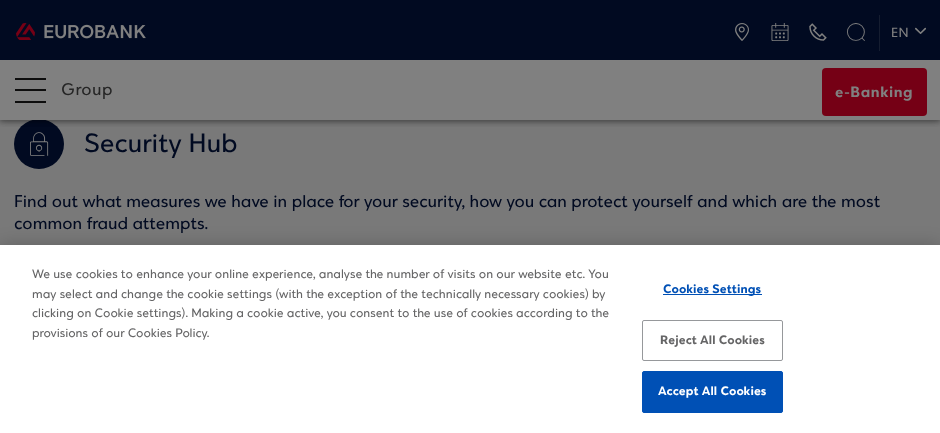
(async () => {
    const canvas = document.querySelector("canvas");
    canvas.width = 940;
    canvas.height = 433;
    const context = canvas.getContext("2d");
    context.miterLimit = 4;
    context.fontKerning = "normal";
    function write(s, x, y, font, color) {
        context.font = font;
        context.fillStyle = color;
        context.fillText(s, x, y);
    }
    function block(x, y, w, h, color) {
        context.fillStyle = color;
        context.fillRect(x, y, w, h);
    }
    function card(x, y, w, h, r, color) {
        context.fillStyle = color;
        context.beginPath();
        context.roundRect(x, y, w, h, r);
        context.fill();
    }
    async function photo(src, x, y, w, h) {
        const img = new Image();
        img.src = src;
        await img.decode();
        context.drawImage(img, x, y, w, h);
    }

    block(0, 0, 940, 433, "rgb(121, 121, 121)");
    context.fillStyle = "rgb(1, 10, 33)";
    context.beginPath();
    context.arc(39, 144, 25, 0, Math.PI * 2);
    context.fill();
    context.fillStyle = "rgba(0, 0, 0, 0.2)";
    context.filter = "blur(2px)";
    context.beginPath();
    context.rect(0, 2, 940, 120);
    context.fill();
    context.filter = "none";
    block(0, 60, 940, 60, "rgb(128, 128, 128)");
    context.save();
    context.beginPath();
    context.rect(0, 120, 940, 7);
    context.clip();
    context.fillStyle = "rgba(0, 0, 0, 0.4)";
    context.filter = "blur(4px)";
    context.beginPath();
    context.rect(0, 60, 940, 60);
    context.fill();
    context.filter = "none";
    context.restore();
    block(0, 0, 940, 60, "rgb(1, 10, 33)");
    await photo("media/1.png", 16, 23, 130, 17);
    await photo("media/2.png", 735, 23, 14, 18);
    context.letterSpacing = "0.5px";
    write(")", 771, 41, "18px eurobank", "rgb(128, 128, 128)");
    await photo("media/3.png", 809, 23, 18, 18);
    write("#", 847, 41, "18px eurobank", "rgb(128, 128, 128)");
    block(879, 15, 1, 36, "rgb(21, 29, 48)");
    write("EN", 891, 37, "14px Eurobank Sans", "rgb(128, 128, 128)");
    write("+", 915, 37, "12px eurobank", "rgb(128, 128, 128)");
    block(15, 78, 31, 2, "rgb(13, 13, 13)");
    block(15, 89, 31, 2, "rgb(13, 13, 13)");
    block(15, 101, 31, 2, "rgb(13, 13, 13)");
    write("Group", 61, 95, "18px Eurobank Sans", "rgb(37, 37, 37)");
    card(822, 68, 105, 48, 4, "rgb(117, 0, 21)");
    write("e-Banking", 835, 97, "bold 16px EurobankSans", "rgb(128, 128, 128)");
    context.letterSpacing = "0px";
    write("(", 27, 156, "24px eurobank", "rgb(128, 128, 128)");
    write("Security Hub", 84, 152, "28px Eurobank Sans", "rgb(1, 10, 33)");
    write("Find out what measures we have in place for your security, how you can protect yourself and which are the most", 14, 207, "18px Eurobank Sans", "rgb(1, 10, 33)");
    write("common fraud attempts.", 14, 229, "18px Eurobank Sans", "rgb(1, 10, 33)");
    context.fillStyle = "rgba(0, 0, 0, 0.2)";
    context.filter = "blur(9px)";
    context.beginPath();
    context.rect(0, 245, 940, 188);
    context.fill();
    context.filter = "none";
    block(0, 245, 940, 188, "rgb(255, 255, 255)");
    write("We use cookies to enhance your online experience, analyse the number of visits on our website etc. You", 32, 278, "13px Eurobank Sans", "rgb(101, 101, 102)");
    write("may select and change the cookie settings (with the exception of the technically necessary cookies) by", 32, 298, "13px Eurobank Sans", "rgb(101, 101, 102)");
    write("clicking on Cookie settings). Making a cookie active, you consent to the use of cookies according to the", 32, 317, "13px Eurobank Sans", "rgb(101, 101, 102)");
    write("provisions of our Cookies Policy.", 32, 337, "13px Eurobank Sans", "rgb(101, 101, 102)");
    block(663, 294, 99, 1, "rgb(0, 80, 181)");
    context.letterSpacing = "0.1px";
    write("Cookies Settings", 663, 293, "bold 13px EurobankSans", "rgb(0, 80, 181)");
    context.beginPath();
    context.roundRect(642.5, 320.5, 140, 40, 1.5);
    context.strokeStyle = "rgb(150, 152, 155)";
    context.stroke();
    write("Reject All Cookies", 660, 344, "bold 13px EurobankSans", "rgb(101, 101, 102)");
    context.fillStyle = "rgb(0, 80, 181)";
    context.beginPath();
    context.roundRect(642.5, 371.5, 140, 41, 1.5);
    context.fill();
    context.strokeStyle = "rgb(0, 80, 181)";
    context.stroke();
    write("Accept All Cookies", 658, 395, "bold 13px EurobankSans", "rgb(255, 255, 255)");
})();
